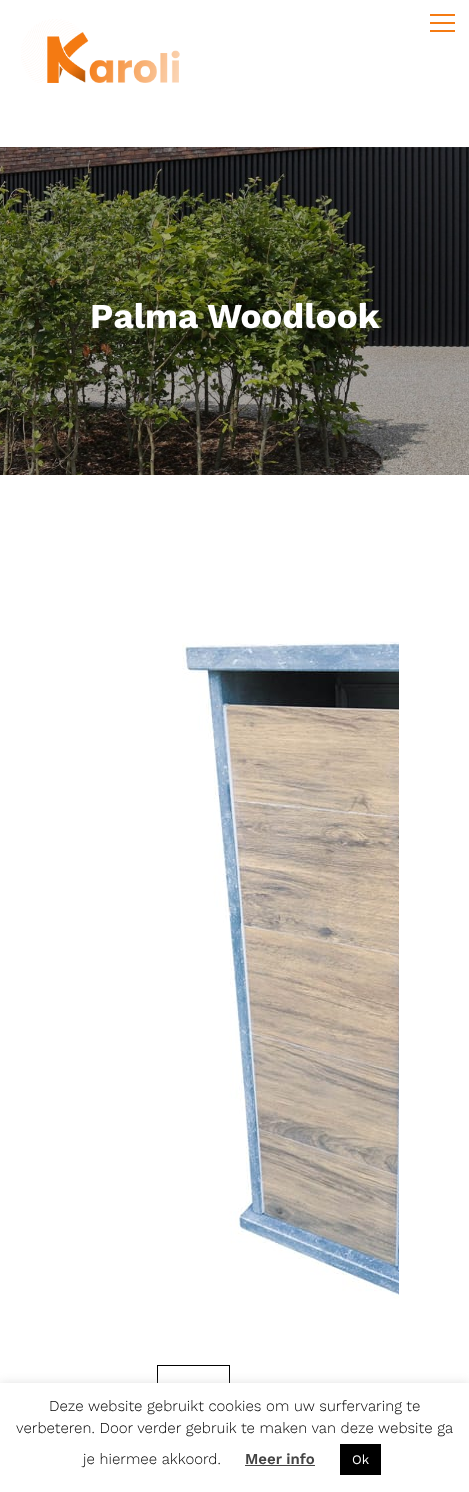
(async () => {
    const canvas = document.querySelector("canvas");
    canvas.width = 469;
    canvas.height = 1492;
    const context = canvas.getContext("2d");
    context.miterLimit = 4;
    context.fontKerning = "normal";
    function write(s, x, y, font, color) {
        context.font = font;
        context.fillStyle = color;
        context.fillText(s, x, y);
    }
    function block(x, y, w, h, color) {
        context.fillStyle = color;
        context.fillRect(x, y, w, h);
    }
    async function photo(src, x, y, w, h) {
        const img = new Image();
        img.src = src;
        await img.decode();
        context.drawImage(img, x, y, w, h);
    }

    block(0, 0, 469, 1492, "rgb(255, 255, 255)");
    await photo("media/1.png", 21, 19, 159, 64);
    block(430, 14, 25, 2, "rgb(245, 123, 19)");
    block(430, 22, 25, 2, "rgb(245, 123, 19)");
    block(430, 30, 25, 2, "rgb(245, 123, 19)");
    await photo("media/2.png", 0, 147, 469, 328);
    write("Palma Woodlook", 90, 328, "bold 35px Work Sans", "rgb(255, 255, 255)");
    await photo("media/3.png", 182, 641, 217, 658);
    context.strokeStyle = "rgb(0, 0, 0)";
    context.strokeRect(157.5, 1365.5, 72, 101);
    context.fillStyle = "rgba(172, 171, 171, 0.3)";
    context.filter = "blur(5px)";
    context.beginPath();
    context.rect(0, 1382, 469, 109);
    context.fill();
    context.filter = "none";
    block(0, 1383, 469, 109, "rgb(255, 255, 255)");
    write("Deze website gebruikt cookies om uw surfervaring te", 49, 1411, "300 15px Work Sans", "rgb(0, 0, 0)");
    write("verbeteren. Door verder gebruik te maken van deze website ga", 16, 1433, "300 15px Work Sans", "rgb(0, 0, 0)");
    write("je hiermee akkoord.", 83, 1464, "300 15px Work Sans", "rgb(0, 0, 0)");
    write("Meer info", 245, 1464, "600 15px Work Sans", "rgb(68, 68, 68)");
    block(245, 1465, 70, 1, "rgb(68, 68, 68)");
    block(340, 1444, 41, 31, "rgb(0, 0, 0)");
    write("Ok", 352, 1464, "13px Work Sans", "rgb(255, 255, 255)");
})();
